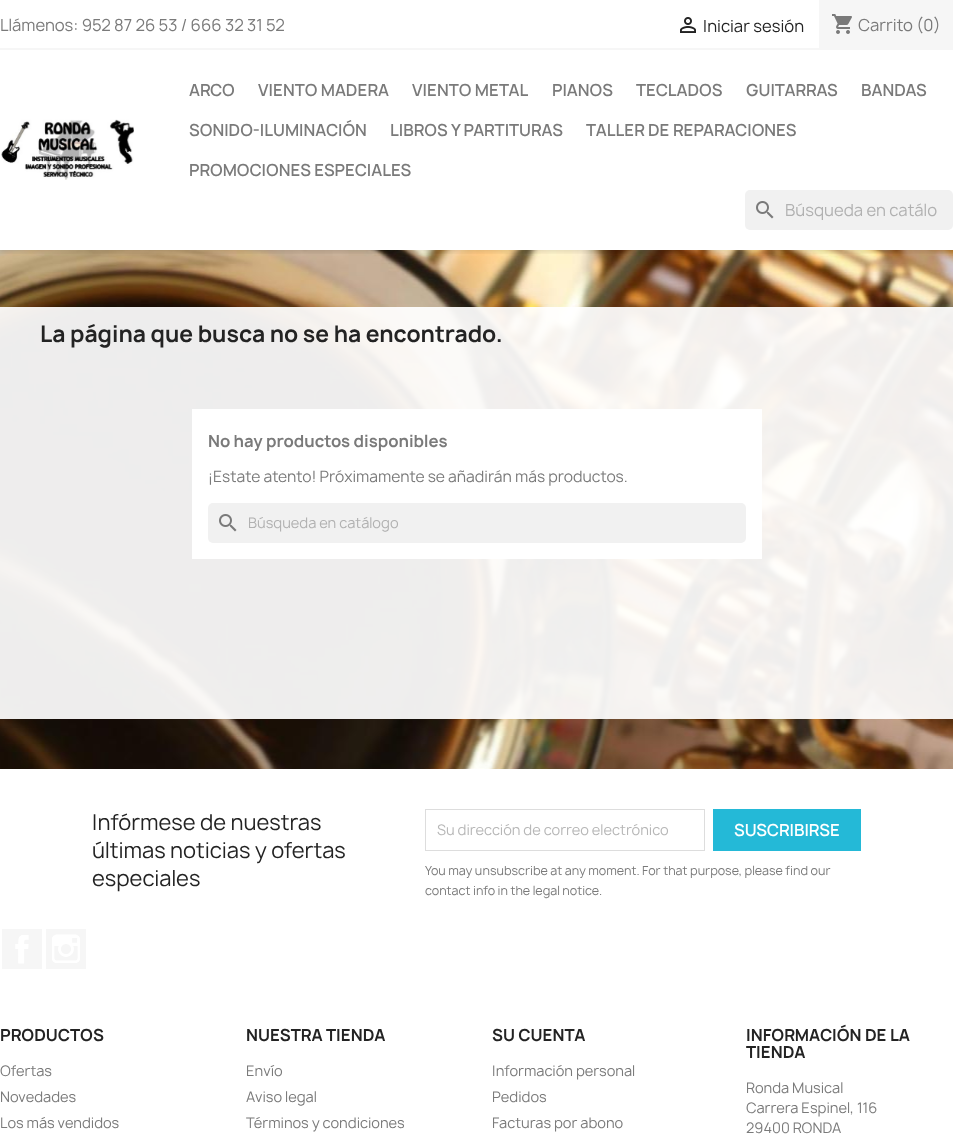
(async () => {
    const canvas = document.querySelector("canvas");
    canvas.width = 953;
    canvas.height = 1147;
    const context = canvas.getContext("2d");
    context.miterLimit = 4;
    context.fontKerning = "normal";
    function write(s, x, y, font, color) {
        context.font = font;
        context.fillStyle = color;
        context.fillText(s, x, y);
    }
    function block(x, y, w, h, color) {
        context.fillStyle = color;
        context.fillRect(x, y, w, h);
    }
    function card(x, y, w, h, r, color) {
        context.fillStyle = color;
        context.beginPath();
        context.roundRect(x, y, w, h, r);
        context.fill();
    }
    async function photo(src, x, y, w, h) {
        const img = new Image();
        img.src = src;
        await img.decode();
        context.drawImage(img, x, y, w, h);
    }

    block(0, 0, 953, 1147, "rgb(255, 255, 255)");
    await photo("media/5.png", 0, 250, 953, 519);
    context.save();
    context.beginPath();
    context.rect(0, 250, 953, 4);
    context.clip();
    context.fillStyle = "rgba(0, 0, 0, 0.11)";
    context.filter = "blur(2.5px)";
    context.beginPath();
    context.rect(0, 2, 953, 250);
    context.fill();
    context.filter = "none";
    context.restore();
    block(0, 48, 953, 2, "rgb(246, 246, 246)");
    write("Llámenos: 952 87 26 53 / 666 32 31 52", 0, 31, "16px Manrope", "rgb(122, 122, 122)");
    await photo("media/1.png", 680, 17, 16, 16);
    write("Iniciar sesión", 703, 32, "16px Manrope", "rgb(35, 35, 35)");
    block(819, 0, 134, 48, "rgb(246, 246, 246)");
    await photo("media/2.png", 832, 14, 20, 20);
    write("Carrito (0)", 858, 31, "16px Manrope", "rgb(122, 122, 122)");
    await photo("media/3.png", 1, 119, 133, 61);
    write("ARCO", 189, 96, "600 16px Manrope", "rgb(122, 122, 122)");
    write("VIENTO MADERA", 258, 96, "600 16px Manrope", "rgb(122, 122, 122)");
    write("VIENTO METAL", 412, 96, "600 16px Manrope", "rgb(122, 122, 122)");
    write("PIANOS", 552, 96, "600 16px Manrope", "rgb(122, 122, 122)");
    write("TECLADOS", 636, 96, "600 16px Manrope", "rgb(122, 122, 122)");
    write("GUITARRAS", 746, 96, "600 16px Manrope", "rgb(122, 122, 122)");
    write("BANDAS", 861, 96, "600 16px Manrope", "rgb(122, 122, 122)");
    write("SONIDO-ILUMINACIÓN", 189, 136, "600 16px Manrope", "rgb(122, 122, 122)");
    write("LIBROS Y PARTITURAS", 390, 136, "600 16px Manrope", "rgb(122, 122, 122)");
    write("TALLER DE REPARACIONES", 586, 136, "600 16px Manrope", "rgb(122, 122, 122)");
    write("PROMOCIONES ESPECIALES", 189, 176, "600 16px Manrope", "rgb(122, 122, 122)");
    card(745, 190, 208, 40, 5, "rgb(241, 241, 241)");
    await photo("media/4.png", 756, 201, 18, 18);
    write("Búsqueda en catálo", 785, 216, "16px Manrope", "rgb(177, 177, 177)");
    block(0, 307, 953, 412, "rgba(255, 255, 255, 0.93)");
    write("La página que busca no se ha encontrado.", 40, 342, "bold 22px Manrope", "rgb(35, 35, 35)");
    block(192, 409, 570, 150, "rgb(255, 255, 255)");
    write("No hay productos disponibles", 208, 447, "bold 16px Manrope", "rgb(122, 122, 122)");
    write("¡Estate atento! Próximamente se añadirán más productos.", 208, 482, "15px Manrope", "rgb(122, 122, 122)");
    card(208, 503, 538, 40, 5, "rgb(241, 241, 241)");
    await photo("media/4.png", 219, 514, 18, 18);
    write("Búsqueda en catálogo", 248, 528, "14px Manrope", "rgb(177, 177, 177)");
    write("Infórmese de nuestras", 92, 830, "21px Manrope", "rgb(35, 35, 35)");
    write("últimas noticias y ofertas", 92, 858, "21px Manrope", "rgb(35, 35, 35)");
    write("especiales", 92, 886, "21px Manrope", "rgb(35, 35, 35)");
    context.strokeStyle = "rgb(221, 221, 221)";
    context.strokeRect(425.5, 809.5, 279, 41);
    write("Su dirección de correo electrónico", 437, 835, "14px Manrope", "rgb(183, 183, 183)");
    block(713, 809, 148, 42, "rgb(36, 185, 215)");
    write("SUSCRIBIRSE", 734, 836, "600 16px Manrope", "rgb(255, 255, 255)");
    write("You may unsubscribe at any moment. For that purpose, please find our", 425, 875, "12px Manrope", "rgb(122, 122, 122)");
    write("contact info in the legal notice.", 425, 895, "12px Manrope", "rgb(122, 122, 122)");
    block(2, 929, 40, 40, "rgb(246, 246, 246)");
    await photo("media/6.png", 15, 935, 14, 29);
    block(46, 929, 40, 40, "rgb(246, 246, 246)");
    await photo("media/7.png", 52, 934, 28, 29);
    write("PRODUCTOS", 0, 1041, "bold 16px Manrope", "rgb(35, 35, 35)");
    write("Ofertas", 0, 1076, "14px Manrope", "rgb(122, 122, 122)");
    write("Novedades", 0, 1102, "14px Manrope", "rgb(122, 122, 122)");
    write("Los más vendidos", 0, 1128, "14px Manrope", "rgb(122, 122, 122)");
    write("NUESTRA TIENDA", 246, 1041, "bold 16px Manrope", "rgb(35, 35, 35)");
    write("Envío", 246, 1076, "14px Manrope", "rgb(122, 122, 122)");
    write("Aviso legal", 246, 1102, "14px Manrope", "rgb(122, 122, 122)");
    write("Términos y condiciones", 246, 1128, "14px Manrope", "rgb(122, 122, 122)");
    write("SU CUENTA", 492, 1041, "bold 16px Manrope", "rgb(35, 35, 35)");
    write("Información personal", 492, 1076, "14px Manrope", "rgb(122, 122, 122)");
    write("Pedidos", 492, 1102, "14px Manrope", "rgb(122, 122, 122)");
    write("Facturas por abono", 492, 1128, "14px Manrope", "rgb(122, 122, 122)");
    write("INFORMACIÓN DE LA", 746, 1041, "bold 16px Manrope", "rgb(35, 35, 35)");
    write("TIENDA", 746, 1058, "bold 16px Manrope", "rgb(35, 35, 35)");
    write("Ronda Musical", 746, 1093, "14px Manrope", "rgb(122, 122, 122)");
    write("Carrera Espinel, 116", 746, 1113, "14px Manrope", "rgb(122, 122, 122)");
    write("29400 RONDA", 746, 1133, "14px Manrope", "rgb(122, 122, 122)");
})();
